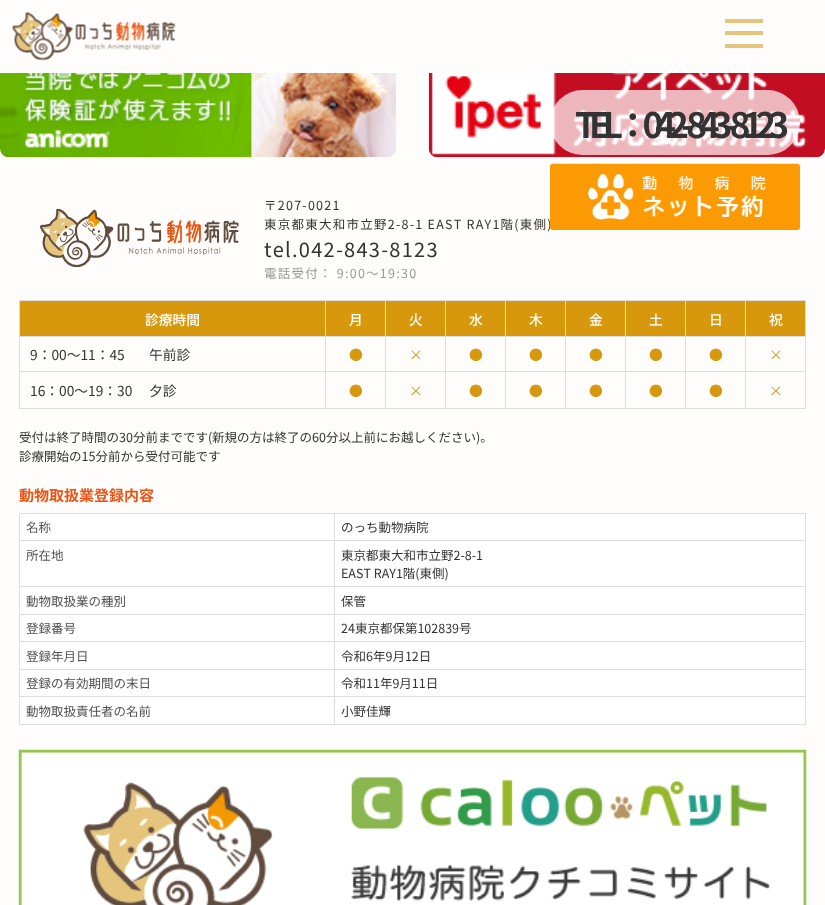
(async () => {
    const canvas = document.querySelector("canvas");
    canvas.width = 825;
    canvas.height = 905;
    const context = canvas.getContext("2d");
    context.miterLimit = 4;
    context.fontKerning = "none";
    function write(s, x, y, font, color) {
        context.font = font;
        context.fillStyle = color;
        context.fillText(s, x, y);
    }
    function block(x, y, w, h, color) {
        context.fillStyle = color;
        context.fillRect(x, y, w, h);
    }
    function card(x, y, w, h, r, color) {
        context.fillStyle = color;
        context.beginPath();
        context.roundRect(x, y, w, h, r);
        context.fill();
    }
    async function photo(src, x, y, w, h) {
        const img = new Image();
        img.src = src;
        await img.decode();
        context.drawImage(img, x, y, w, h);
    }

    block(0, 0, 825, 905, "rgb(254, 253, 251)");
    await photo("media/1.png", 12, 12, 164, 49);
    block(725, 19, 38, 4, "rgb(229, 196, 124)");
    block(725, 31, 38, 4, "rgb(229, 196, 124)");
    block(725, 44, 38, 4, "rgb(229, 196, 124)");
    await photo("media/4.png", 428, 73, 397, 85);
    card(550, 90, 250, 65, 32.5, "rgba(255, 255, 255, 0.7)");
    context.letterSpacing = "-7.8px";
    write("TEL：042-843-8123", 575, 138, "bold 35px Noto Sans CJK JP", "rgb(51, 51, 51)");
    context.letterSpacing = "1.25px";
    write("東京都東大和市立野2-8-1 EAST RAY1階(東側)", 264, 229, "12.5px Noto Sans CJK JP", "rgb(51, 51, 51)");
    await photo("media/2.png", 550, 163, 250, 67);
    await photo("media/3.png", 0, 73, 396, 85);
    await photo("media/5.png", 40, 209, 199, 58);
    write("〒207-0021", 264, 210, "12.5px Noto Sans CJK JP", "rgb(51, 51, 51)");
    write("tel.042-843-8123", 264, 257, "20px Noto Sans CJK JP", "rgb(51, 51, 51)");
    write("電話受付： 9:00～19:30", 264, 278, "12.5px Noto Sans CJK JP", "rgb(153, 153, 153)");
    block(20, 301, 305, 35, "rgb(216, 152, 13)");
    block(745, 300, 61, 1, "rgb(221, 221, 221)");
    block(745, 336, 61, 1, "rgb(221, 221, 221)");
    block(745, 371, 61, 1, "rgb(221, 221, 221)");
    block(805, 371, 1, 38, "rgb(221, 221, 221)");
    block(745, 408, 61, 1, "rgb(221, 221, 221)");
    block(745, 371, 1, 38, "rgb(221, 221, 221)");
    block(685, 371, 61, 1, "rgb(221, 221, 221)");
    block(745, 336, 1, 37, "rgb(221, 221, 221)");
    block(685, 336, 61, 1, "rgb(221, 221, 221)");
    block(745, 300, 1, 38, "rgb(221, 221, 221)");
    block(685, 300, 61, 1, "rgb(221, 221, 221)");
    block(685, 408, 61, 1, "rgb(221, 221, 221)");
    block(685, 371, 1, 38, "rgb(221, 221, 221)");
    block(625, 371, 61, 1, "rgb(221, 221, 221)");
    block(685, 336, 1, 37, "rgb(221, 221, 221)");
    block(625, 336, 61, 1, "rgb(221, 221, 221)");
    block(685, 300, 1, 38, "rgb(221, 221, 221)");
    block(625, 300, 61, 1, "rgb(221, 221, 221)");
    block(625, 408, 61, 1, "rgb(221, 221, 221)");
    block(625, 371, 1, 38, "rgb(221, 221, 221)");
    block(565, 371, 61, 1, "rgb(221, 221, 221)");
    block(625, 336, 1, 37, "rgb(221, 221, 221)");
    block(565, 336, 61, 1, "rgb(221, 221, 221)");
    block(625, 300, 1, 38, "rgb(221, 221, 221)");
    block(565, 300, 61, 1, "rgb(221, 221, 221)");
    block(565, 408, 61, 1, "rgb(221, 221, 221)");
    block(565, 371, 1, 38, "rgb(221, 221, 221)");
    block(505, 371, 61, 1, "rgb(221, 221, 221)");
    block(565, 336, 1, 37, "rgb(221, 221, 221)");
    block(505, 336, 61, 1, "rgb(221, 221, 221)");
    block(565, 300, 1, 38, "rgb(221, 221, 221)");
    block(505, 300, 61, 1, "rgb(221, 221, 221)");
    block(505, 408, 61, 1, "rgb(221, 221, 221)");
    block(505, 371, 1, 38, "rgb(221, 221, 221)");
    block(445, 371, 61, 1, "rgb(221, 221, 221)");
    block(505, 336, 1, 37, "rgb(221, 221, 221)");
    block(445, 336, 61, 1, "rgb(221, 221, 221)");
    block(505, 300, 1, 38, "rgb(221, 221, 221)");
    block(445, 300, 61, 1, "rgb(221, 221, 221)");
    block(445, 408, 61, 1, "rgb(221, 221, 221)");
    block(445, 371, 1, 38, "rgb(221, 221, 221)");
    block(385, 371, 61, 1, "rgb(221, 221, 221)");
    block(445, 336, 1, 37, "rgb(221, 221, 221)");
    block(385, 336, 61, 1, "rgb(221, 221, 221)");
    block(445, 300, 1, 38, "rgb(221, 221, 221)");
    block(385, 300, 61, 1, "rgb(221, 221, 221)");
    block(385, 408, 61, 1, "rgb(221, 221, 221)");
    block(385, 371, 1, 38, "rgb(221, 221, 221)");
    block(325, 371, 61, 1, "rgb(221, 221, 221)");
    block(385, 336, 1, 37, "rgb(221, 221, 221)");
    block(325, 336, 61, 1, "rgb(221, 221, 221)");
    block(385, 300, 1, 38, "rgb(221, 221, 221)");
    block(325, 300, 61, 1, "rgb(221, 221, 221)");
    block(325, 408, 61, 1, "rgb(221, 221, 221)");
    block(325, 371, 1, 38, "rgb(221, 221, 221)");
    block(19, 371, 307, 1, "rgb(221, 221, 221)");
    block(325, 336, 1, 37, "rgb(221, 221, 221)");
    block(19, 336, 307, 1, "rgb(221, 221, 221)");
    block(325, 300, 1, 38, "rgb(221, 221, 221)");
    block(19, 300, 307, 1, "rgb(221, 221, 221)");
    block(19, 408, 307, 1, "rgb(221, 221, 221)");
    block(19, 371, 1, 38, "rgb(221, 221, 221)");
    block(19, 336, 1, 37, "rgb(221, 221, 221)");
    block(19, 300, 1, 38, "rgb(221, 221, 221)");
    context.letterSpacing = "0px";
    write("診療時間", 145, 325, "500 13.75px Noto Sans CJK JP", "rgb(255, 255, 255)");
    block(326, 301, 59, 35, "rgb(216, 152, 13)");
    write("月", 349, 325, "500 13.75px Noto Sans CJK JP", "rgb(255, 255, 255)");
    block(386, 301, 59, 35, "rgb(216, 152, 13)");
    write("火", 409, 325, "500 13.75px Noto Sans CJK JP", "rgb(255, 255, 255)");
    block(446, 301, 59, 35, "rgb(216, 152, 13)");
    write("水", 469, 325, "500 13.75px Noto Sans CJK JP", "rgb(255, 255, 255)");
    block(506, 301, 59, 35, "rgb(216, 152, 13)");
    write("木", 529, 325, "500 13.75px Noto Sans CJK JP", "rgb(255, 255, 255)");
    block(566, 301, 59, 35, "rgb(216, 152, 13)");
    write("金", 589, 325, "500 13.75px Noto Sans CJK JP", "rgb(255, 255, 255)");
    block(626, 301, 59, 35, "rgb(216, 152, 13)");
    write("土", 649, 325, "500 13.75px Noto Sans CJK JP", "rgb(255, 255, 255)");
    block(686, 301, 59, 35, "rgb(216, 152, 13)");
    write("日", 709, 325, "500 13.75px Noto Sans CJK JP", "rgb(255, 255, 255)");
    block(746, 301, 59, 35, "rgb(216, 152, 13)");
    block(805, 336, 1, 37, "rgb(221, 221, 221)");
    block(805, 300, 1, 38, "rgb(221, 221, 221)");
    write("祝", 769, 325, "500 13.75px Noto Sans CJK JP", "rgb(255, 255, 255)");
    write("9：00～11：45", 30, 360, "13.75px Noto Sans CJK JP", "rgb(51, 51, 51)");
    write("午前診", 149, 360, "13.75px Noto Sans CJK JP", "rgb(51, 51, 51)");
    write("●", 349, 360, "13.75px Noto Sans CJK JP", "rgb(216, 152, 13)");
    write("×", 409, 360, "13.75px Noto Sans CJK JP", "rgb(216, 152, 13)");
    write("●", 469, 360, "13.75px Noto Sans CJK JP", "rgb(216, 152, 13)");
    write("●", 529, 360, "13.75px Noto Sans CJK JP", "rgb(216, 152, 13)");
    write("●", 589, 360, "13.75px Noto Sans CJK JP", "rgb(216, 152, 13)");
    write("●", 649, 360, "13.75px Noto Sans CJK JP", "rgb(216, 152, 13)");
    write("●", 709, 360, "13.75px Noto Sans CJK JP", "rgb(216, 152, 13)");
    write("×", 769, 360, "13.75px Noto Sans CJK JP", "rgb(216, 152, 13)");
    write("16：00～19：30", 30, 396, "13.75px Noto Sans CJK JP", "rgb(51, 51, 51)");
    write("夕診", 149, 396, "13.75px Noto Sans CJK JP", "rgb(51, 51, 51)");
    write("●", 349, 396, "13.75px Noto Sans CJK JP", "rgb(216, 152, 13)");
    write("×", 409, 396, "13.75px Noto Sans CJK JP", "rgb(216, 152, 13)");
    write("●", 469, 396, "13.75px Noto Sans CJK JP", "rgb(216, 152, 13)");
    write("●", 529, 396, "13.75px Noto Sans CJK JP", "rgb(216, 152, 13)");
    write("●", 589, 396, "13.75px Noto Sans CJK JP", "rgb(216, 152, 13)");
    write("●", 649, 396, "13.75px Noto Sans CJK JP", "rgb(216, 152, 13)");
    write("●", 709, 396, "13.75px Noto Sans CJK JP", "rgb(216, 152, 13)");
    write("×", 769, 396, "13.75px Noto Sans CJK JP", "rgb(216, 152, 13)");
    write("受付は終了時間の30分前までです(新規の方は終了の60分以上前にお越しください)。", 19, 442, "12.5px Noto Sans CJK JP", "rgb(51, 51, 51)");
    write("診療開始の15分前から受付可能です", 19, 461, "12.5px Noto Sans CJK JP", "rgb(51, 51, 51)");
    write("動物取扱業登録内容", 19, 501, "bold 15px Noto Sans CJK JP", "rgb(234, 85, 20)");
    block(19, 513, 787, 1, "rgb(221, 221, 221)");
    block(19, 513, 1, 212, "rgb(221, 221, 221)");
    block(20, 514, 314, 26, "rgb(255, 255, 255)");
    block(805, 513, 1, 212, "rgb(221, 221, 221)");
    block(334, 724, 472, 1, "rgb(221, 221, 221)");
    block(334, 696, 1, 29, "rgb(221, 221, 221)");
    block(334, 696, 472, 1, "rgb(221, 221, 221)");
    block(334, 669, 1, 29, "rgb(221, 221, 221)");
    block(334, 669, 472, 1, "rgb(221, 221, 221)");
    block(334, 641, 1, 29, "rgb(221, 221, 221)");
    block(334, 641, 472, 1, "rgb(221, 221, 221)");
    block(334, 614, 1, 29, "rgb(221, 221, 221)");
    block(334, 614, 472, 1, "rgb(221, 221, 221)");
    block(334, 586, 1, 29, "rgb(221, 221, 221)");
    block(334, 586, 472, 1, "rgb(221, 221, 221)");
    block(334, 540, 1, 48, "rgb(221, 221, 221)");
    block(334, 540, 472, 1, "rgb(221, 221, 221)");
    block(334, 513, 1, 28, "rgb(221, 221, 221)");
    block(19, 540, 316, 1, "rgb(221, 221, 221)");
    write("名称", 26, 532, "12.5px Noto Sans CJK JP", "rgb(80, 80, 80)");
    block(335, 514, 470, 26, "rgb(255, 255, 255)");
    write("のっち動物病院", 341, 532, "12.5px Noto Sans CJK JP", "rgb(51, 51, 51)");
    block(20, 541, 314, 45, "rgb(255, 255, 255)");
    block(19, 586, 316, 1, "rgb(221, 221, 221)");
    write("所在地", 26, 560, "12.5px Noto Sans CJK JP", "rgb(80, 80, 80)");
    block(335, 541, 470, 45, "rgb(255, 255, 255)");
    write("東京都東大和市立野2-8-1", 341, 560, "12.5px Noto Sans CJK JP", "rgb(51, 51, 51)");
    write("EAST RAY1階(東側)", 341, 578, "12.5px Noto Sans CJK JP", "rgb(51, 51, 51)");
    block(20, 587, 314, 27, "rgb(255, 255, 255)");
    block(19, 614, 316, 1, "rgb(221, 221, 221)");
    write("動物取扱業の種別", 26, 606, "12.5px Noto Sans CJK JP", "rgb(80, 80, 80)");
    block(335, 587, 470, 27, "rgb(255, 255, 255)");
    write("保管", 341, 606, "12.5px Noto Sans CJK JP", "rgb(51, 51, 51)");
    block(20, 615, 314, 26, "rgb(255, 255, 255)");
    block(19, 641, 316, 1, "rgb(221, 221, 221)");
    write("登録番号", 26, 633, "12.5px Noto Sans CJK JP", "rgb(80, 80, 80)");
    block(335, 615, 470, 26, "rgb(255, 255, 255)");
    write("24東京都保第102839号", 341, 633, "12.5px Noto Sans CJK JP", "rgb(51, 51, 51)");
    block(20, 642, 314, 27, "rgb(255, 255, 255)");
    block(19, 669, 316, 1, "rgb(221, 221, 221)");
    write("登録年月日", 26, 661, "12.5px Noto Sans CJK JP", "rgb(80, 80, 80)");
    block(335, 642, 470, 27, "rgb(255, 255, 255)");
    write("令和6年9月12日", 341, 661, "12.5px Noto Sans CJK JP", "rgb(51, 51, 51)");
    block(20, 670, 314, 26, "rgb(255, 255, 255)");
    block(19, 696, 316, 1, "rgb(221, 221, 221)");
    write("登録の有効期間の末日", 26, 688, "12.5px Noto Sans CJK JP", "rgb(80, 80, 80)");
    block(335, 670, 470, 26, "rgb(255, 255, 255)");
    write("令和11年9月11日", 341, 688, "12.5px Noto Sans CJK JP", "rgb(51, 51, 51)");
    block(20, 697, 314, 27, "rgb(255, 255, 255)");
    block(19, 724, 316, 1, "rgb(221, 221, 221)");
    write("動物取扱責任者の名前", 26, 716, "12.5px Noto Sans CJK JP", "rgb(80, 80, 80)");
    block(335, 697, 470, 27, "rgb(255, 255, 255)");
    write("小野佳輝", 341, 716, "12.5px Noto Sans CJK JP", "rgb(51, 51, 51)");
    await photo("media/6.png", 18, 749, 789, 156);
})();
